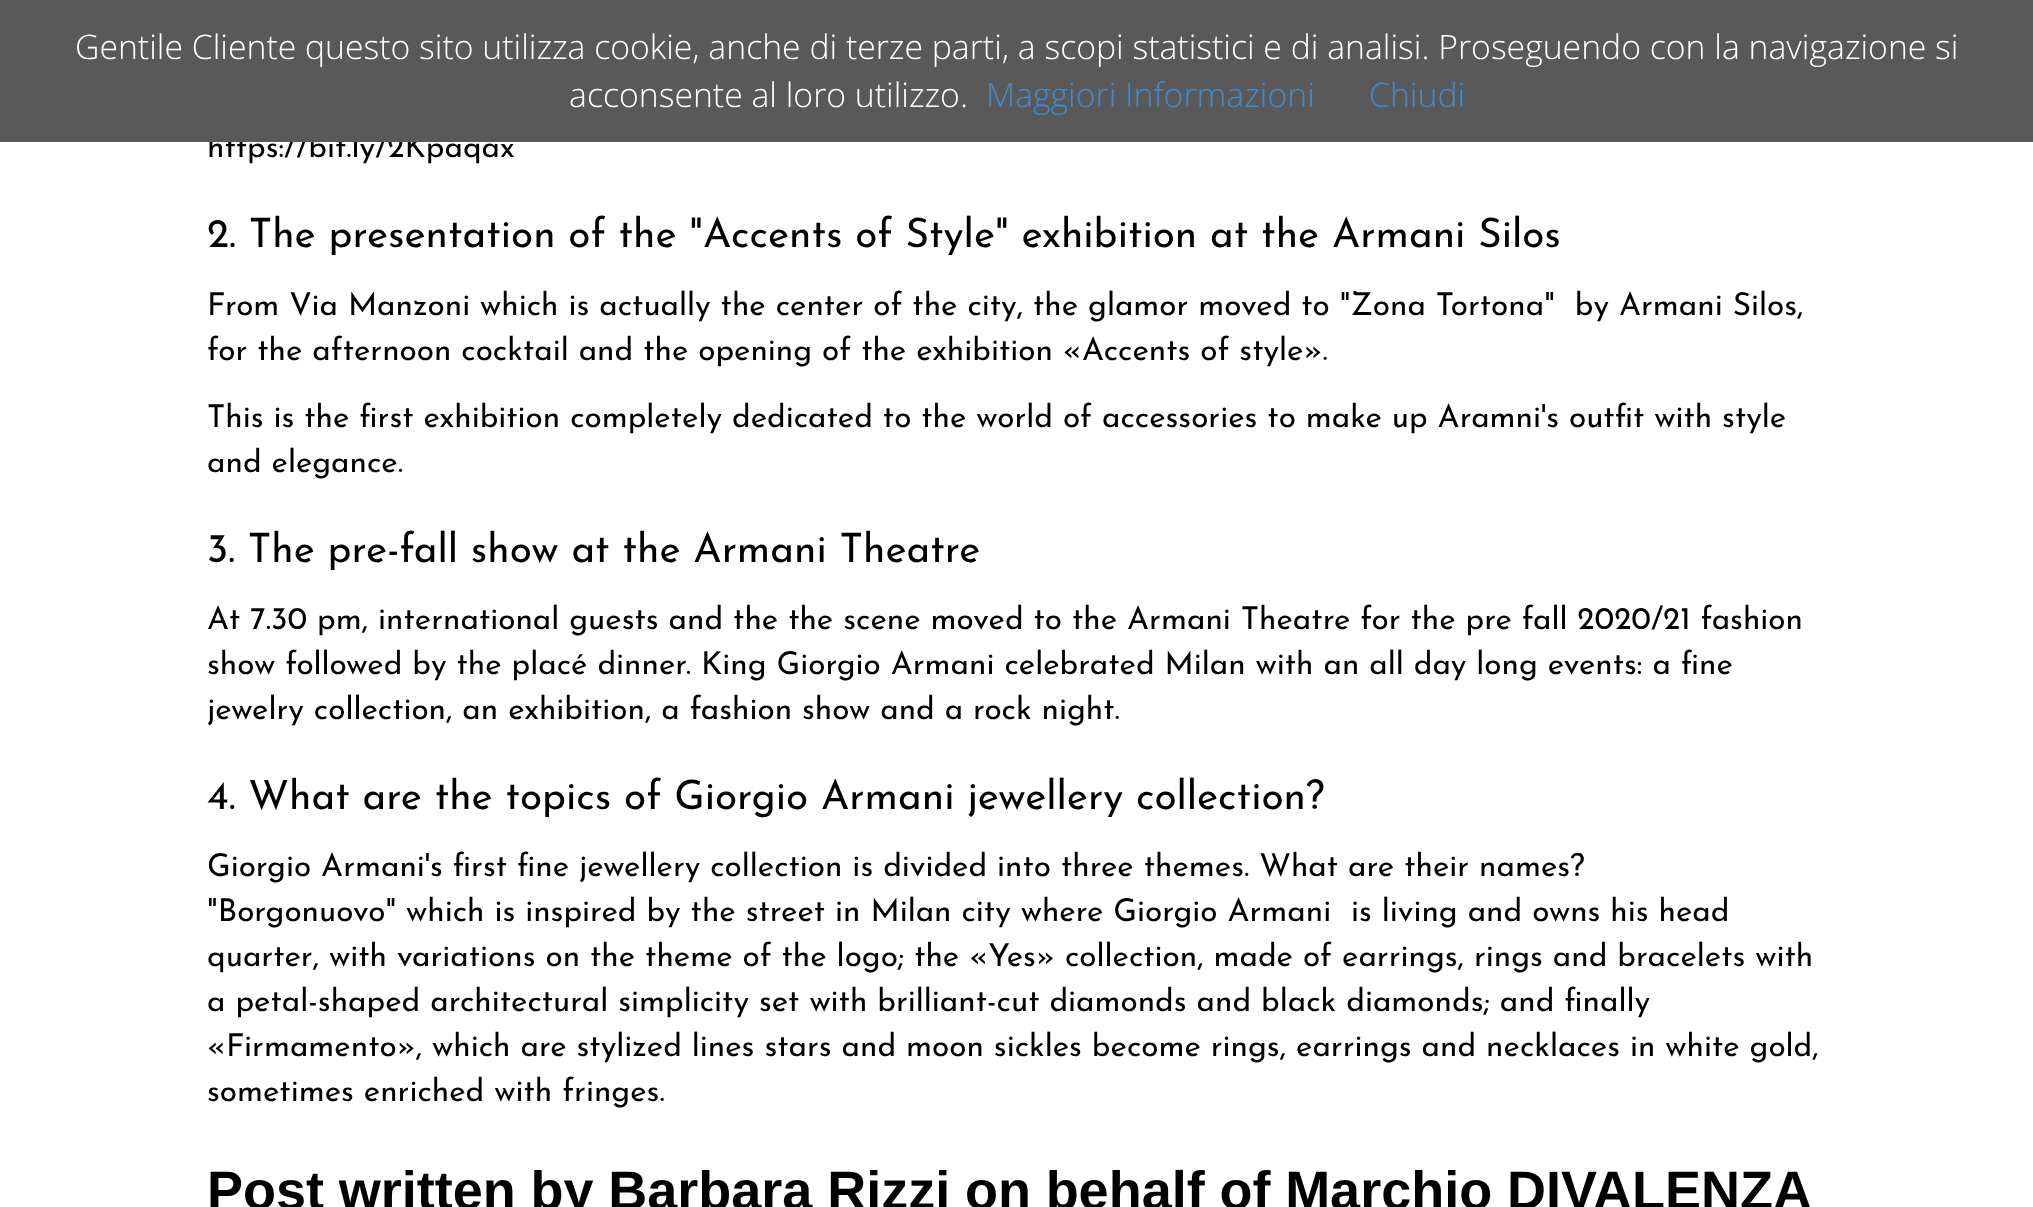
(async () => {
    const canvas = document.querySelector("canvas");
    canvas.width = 2033;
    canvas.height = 1207;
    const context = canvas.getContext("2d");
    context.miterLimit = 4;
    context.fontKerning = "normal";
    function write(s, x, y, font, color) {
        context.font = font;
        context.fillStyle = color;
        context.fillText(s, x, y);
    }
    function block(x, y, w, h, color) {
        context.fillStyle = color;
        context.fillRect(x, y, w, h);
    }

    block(0, 0, 2033, 1207, "rgb(255, 255, 255)");
    write("https://bit.ly/2Kpaqax", 207, 157, "100 31.5px Josefin Sans", "rgb(0, 0, 0)");
    block(0, 0, 2033, 142, "rgb(89, 89, 89)");
    write("Gentile Cliente questo sito utilizza cookie, anche di terze parti, a scopi statistici e di analisi. Proseguendo con la navigazione si", 75, 59, "300 33.75px Open Sans", "rgb(255, 255, 255)");
    write("acconsente al loro utilizzo.", 569, 107, "300 33.75px Open Sans", "rgb(255, 255, 255)");
    write("Maggiori Informazioni", 986, 107, "300 33.75px Open Sans", "rgb(66, 139, 202)");
    write("Chiudi", 1369, 107, "300 33.75px Open Sans", "rgb(66, 139, 202)");
    write("2. The presentation of the \"Accents of Style\" exhibition at the Armani Silos", 207, 247, "100 40.5px Josefin Sans", "rgb(0, 0, 0)");
    write("From Via Manzoni which is actually the center of the city, the glamor moved to \"Zona Tortona\"  by Armani Silos,", 207, 315, "100 31.5px Josefin Sans", "rgb(0, 0, 0)");
    write("for the afternoon cocktail and the opening of the exhibition «Accents of style».", 207, 360, "100 31.5px Josefin Sans", "rgb(0, 0, 0)");
    write("This is the first exhibition completely dedicated to the world of accessories to make up Aramni's outfit with style", 207, 427, "100 31.5px Josefin Sans", "rgb(0, 0, 0)");
    write("and elegance.", 207, 472, "100 31.5px Josefin Sans", "rgb(0, 0, 0)");
    write("3. The pre-fall show at the Armani Theatre", 207, 562, "100 40.5px Josefin Sans", "rgb(0, 0, 0)");
    write("At 7.30 pm, international guests and the the scene moved to the Armani Theatre for the pre fall 2020/21 fashion", 207, 629, "100 31.5px Josefin Sans", "rgb(0, 0, 0)");
    write("show followed by the placé dinner. King Giorgio Armani celebrated Milan with an all day long events: a fine", 207, 674, "100 31.5px Josefin Sans", "rgb(0, 0, 0)");
    write("jewelry collection, an exhibition, a fashion show and a rock night.", 207, 719, "100 31.5px Josefin Sans", "rgb(0, 0, 0)");
    write("4. What are the topics of Giorgio Armani jewellery collection?", 207, 809, "100 40.5px Josefin Sans", "rgb(0, 0, 0)");
    write("Giorgio Armani's first fine jewellery collection is divided into three themes. What are their names?", 207, 876, "100 31.5px Josefin Sans", "rgb(0, 0, 0)");
    write("\"Borgonuovo\" which is inspired by the street in Milan city where Giorgio Armani  is living and owns his head", 207, 921, "100 31.5px Josefin Sans", "rgb(0, 0, 0)");
    write("quarter, with variations on the theme of the logo; the «Yes» collection, made of earrings, rings and bracelets with", 207, 966, "100 31.5px Josefin Sans", "rgb(0, 0, 0)");
    write("a petal-shaped architectural simplicity set with brilliant-cut diamonds and black diamonds; and finally", 207, 1011, "100 31.5px Josefin Sans", "rgb(0, 0, 0)");
    write("«Firmamento», which are stylized lines stars and moon sickles become rings, earrings and necklaces in white gold,", 207, 1056, "100 31.5px Josefin Sans", "rgb(0, 0, 0)");
    write("sometimes enriched with fringes.", 207, 1101, "100 31.5px Josefin Sans", "rgb(0, 0, 0)");
    context.wordSpacing = "-0.25px";
    write("Post written by Barbara Rizzi on behalf of Marchio DIVALENZA", 207, 1209, "bold 54px Liberation Sans", "rgb(0, 0, 0)");
})();
